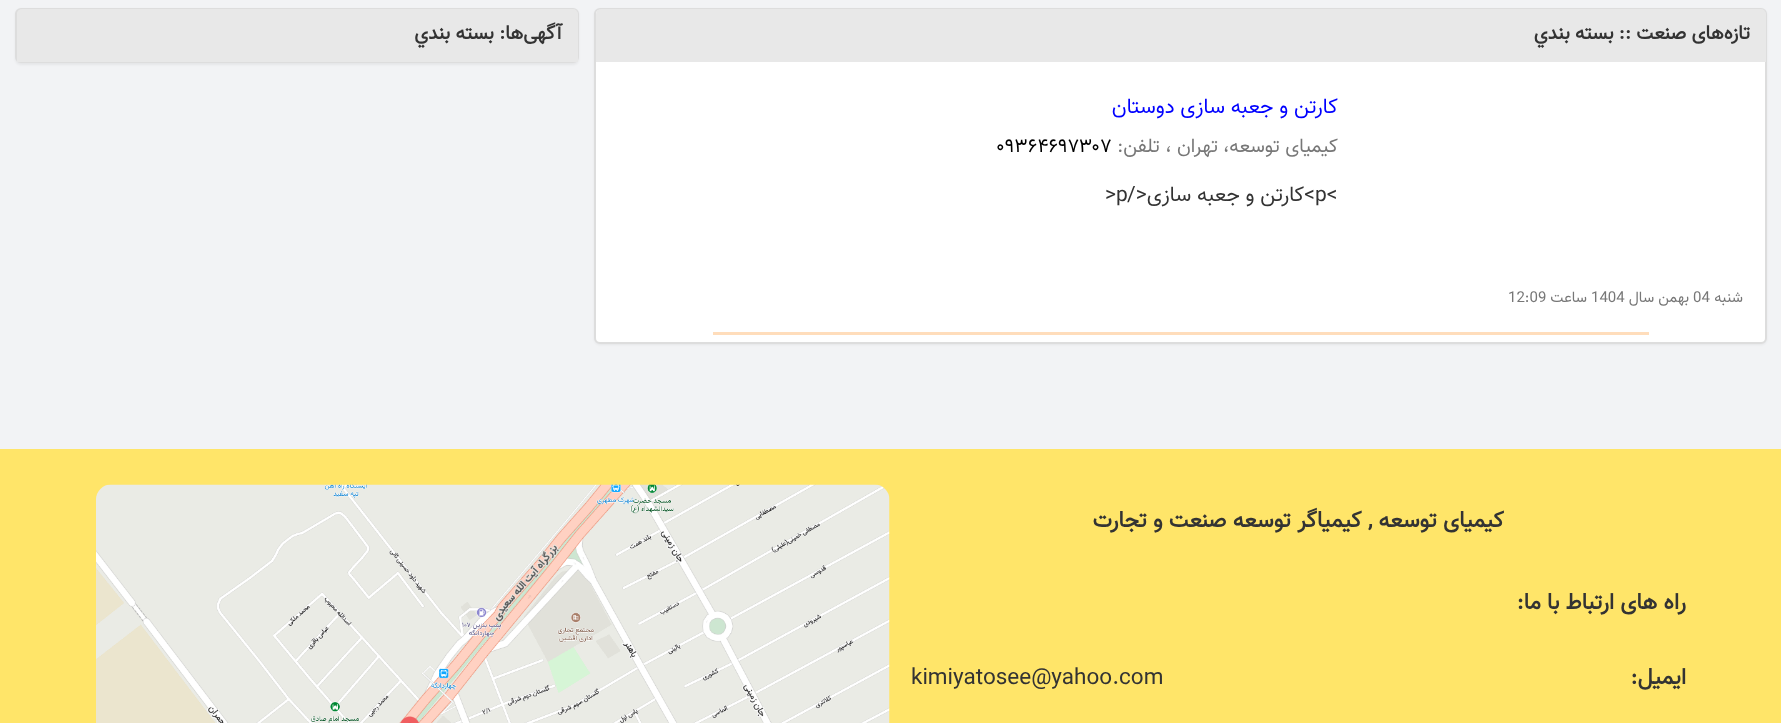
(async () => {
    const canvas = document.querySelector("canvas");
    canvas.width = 1781;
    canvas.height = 723;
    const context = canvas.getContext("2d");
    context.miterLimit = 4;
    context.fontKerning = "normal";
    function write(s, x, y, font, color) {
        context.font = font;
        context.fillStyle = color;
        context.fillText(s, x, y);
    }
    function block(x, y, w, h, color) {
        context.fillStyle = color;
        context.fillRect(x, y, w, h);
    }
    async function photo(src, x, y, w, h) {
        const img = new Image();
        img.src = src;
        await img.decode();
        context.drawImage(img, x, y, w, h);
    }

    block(0, 0, 1781, 723, "rgb(242, 243, 245)");
    context.fillStyle = "rgba(0, 0, 0, 0.05)";
    context.filter = "blur(1px)";
    context.beginPath();
    context.roundRect(594, 9, 1173, 336, 6);
    context.fill();
    context.filter = "none";
    context.fillStyle = "rgb(255, 255, 255)";
    context.beginPath();
    context.roundRect(595, 9, 1171, 334, 5);
    context.fill();
    context.strokeStyle = "rgb(221, 221, 221)";
    context.lineWidth = 2;
    context.stroke();
    context.fillStyle = "rgb(232, 232, 232)";
    context.beginPath();
    context.roundRect(596, 9, 1170, 53, [5, 5, 0, 0]);
    context.fill();
    context.direction = "rtl";
    write("تازه‌های صنعت :: بسته بندي", 1750, 39, "bold 19.5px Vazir", "rgb(51, 51, 51)");
    write("کارتن و جعبه سازی دوستان", 1338, 113, "21px Vazir", "rgb(0, 0, 255)");
    write("کیمیای توسعه،", 1338, 152, "19.5px Vazir", "rgb(119, 119, 119)");
    write("تهران ، تلفن:", 1218, 152, "19.5px Vazir", "rgb(119, 119, 119)");
    context.direction = "ltr";
    write("۰۹۳۶۴۶۹۷۳۰۷", 996, 152, "19.5px Vazir", "rgb(0, 0, 0)");
    write("p<", 1315, 201, "21px Vazir", "rgb(51, 51, 51)");
    context.direction = "rtl";
    write(">کارتن و جعبه سازی<\/", 1315, 201, "21px Vazir", "rgb(51, 51, 51)");
    context.direction = "ltr";
    write(">p", 1105, 201, "21px Vazir", "rgb(51, 51, 51)");
    context.direction = "rtl";
    write("شنبه", 1743, 302, "15px Vazir", "rgb(119, 119, 119)");
    context.direction = "ltr";
    write("04", 1693, 302, "15px Vazir", "rgb(119, 119, 119)");
    context.direction = "rtl";
    write("بهمن سال", 1689, 302, "15px Vazir", "rgb(119, 119, 119)");
    context.direction = "ltr";
    write("1404", 1591, 302, "15px Vazir", "rgb(119, 119, 119)");
    context.direction = "rtl";
    write("ساعت", 1587, 302, "15px Vazir", "rgb(119, 119, 119)");
    context.direction = "ltr";
    write("12:09", 1508, 302, "15px Vazir", "rgb(119, 119, 119)");
    block(713, 332, 936, 3, "rgb(255, 221, 187)");
    context.fillStyle = "rgba(0, 0, 0, 0.05)";
    context.filter = "blur(1px)";
    context.beginPath();
    context.roundRect(15, 9, 564, 56, 6);
    context.fill();
    context.filter = "none";
    context.beginPath();
    context.roundRect(16, 9, 562, 53, 5);
    context.stroke();
    context.fillStyle = "rgb(232, 232, 232)";
    context.beginPath();
    context.roundRect(17, 9, 561, 53, [5, 5, 0, 0]);
    context.fill();
    context.direction = "rtl";
    write("آگهی‌ها: بسته بندي", 562, 39, "bold 19.5px Vazir", "rgb(51, 51, 51)");
    block(0, 449, 1781, 274, "rgb(255, 229, 105)");
    write("کیمیای توسعه , کیمیاگر توسعه صنعت و تجارت", 1504, 527, "bold 22.5px Vazir", "rgb(51, 51, 51)");
    write("راه های ارتباط با ما:", 1686, 609, "bold 22.5px Vazir", "rgb(51, 51, 51)");
    write("ایمیل:", 1686, 684, "bold 22.5px Vazir", "rgb(51, 51, 51)");
    context.direction = "ltr";
    write("kimiyatosee@yahoo.com", 911, 684, "22.5px Vazir", "rgb(51, 51, 51)");
    await photo("media/1.png", 96, 484, 794, 239);
})();
